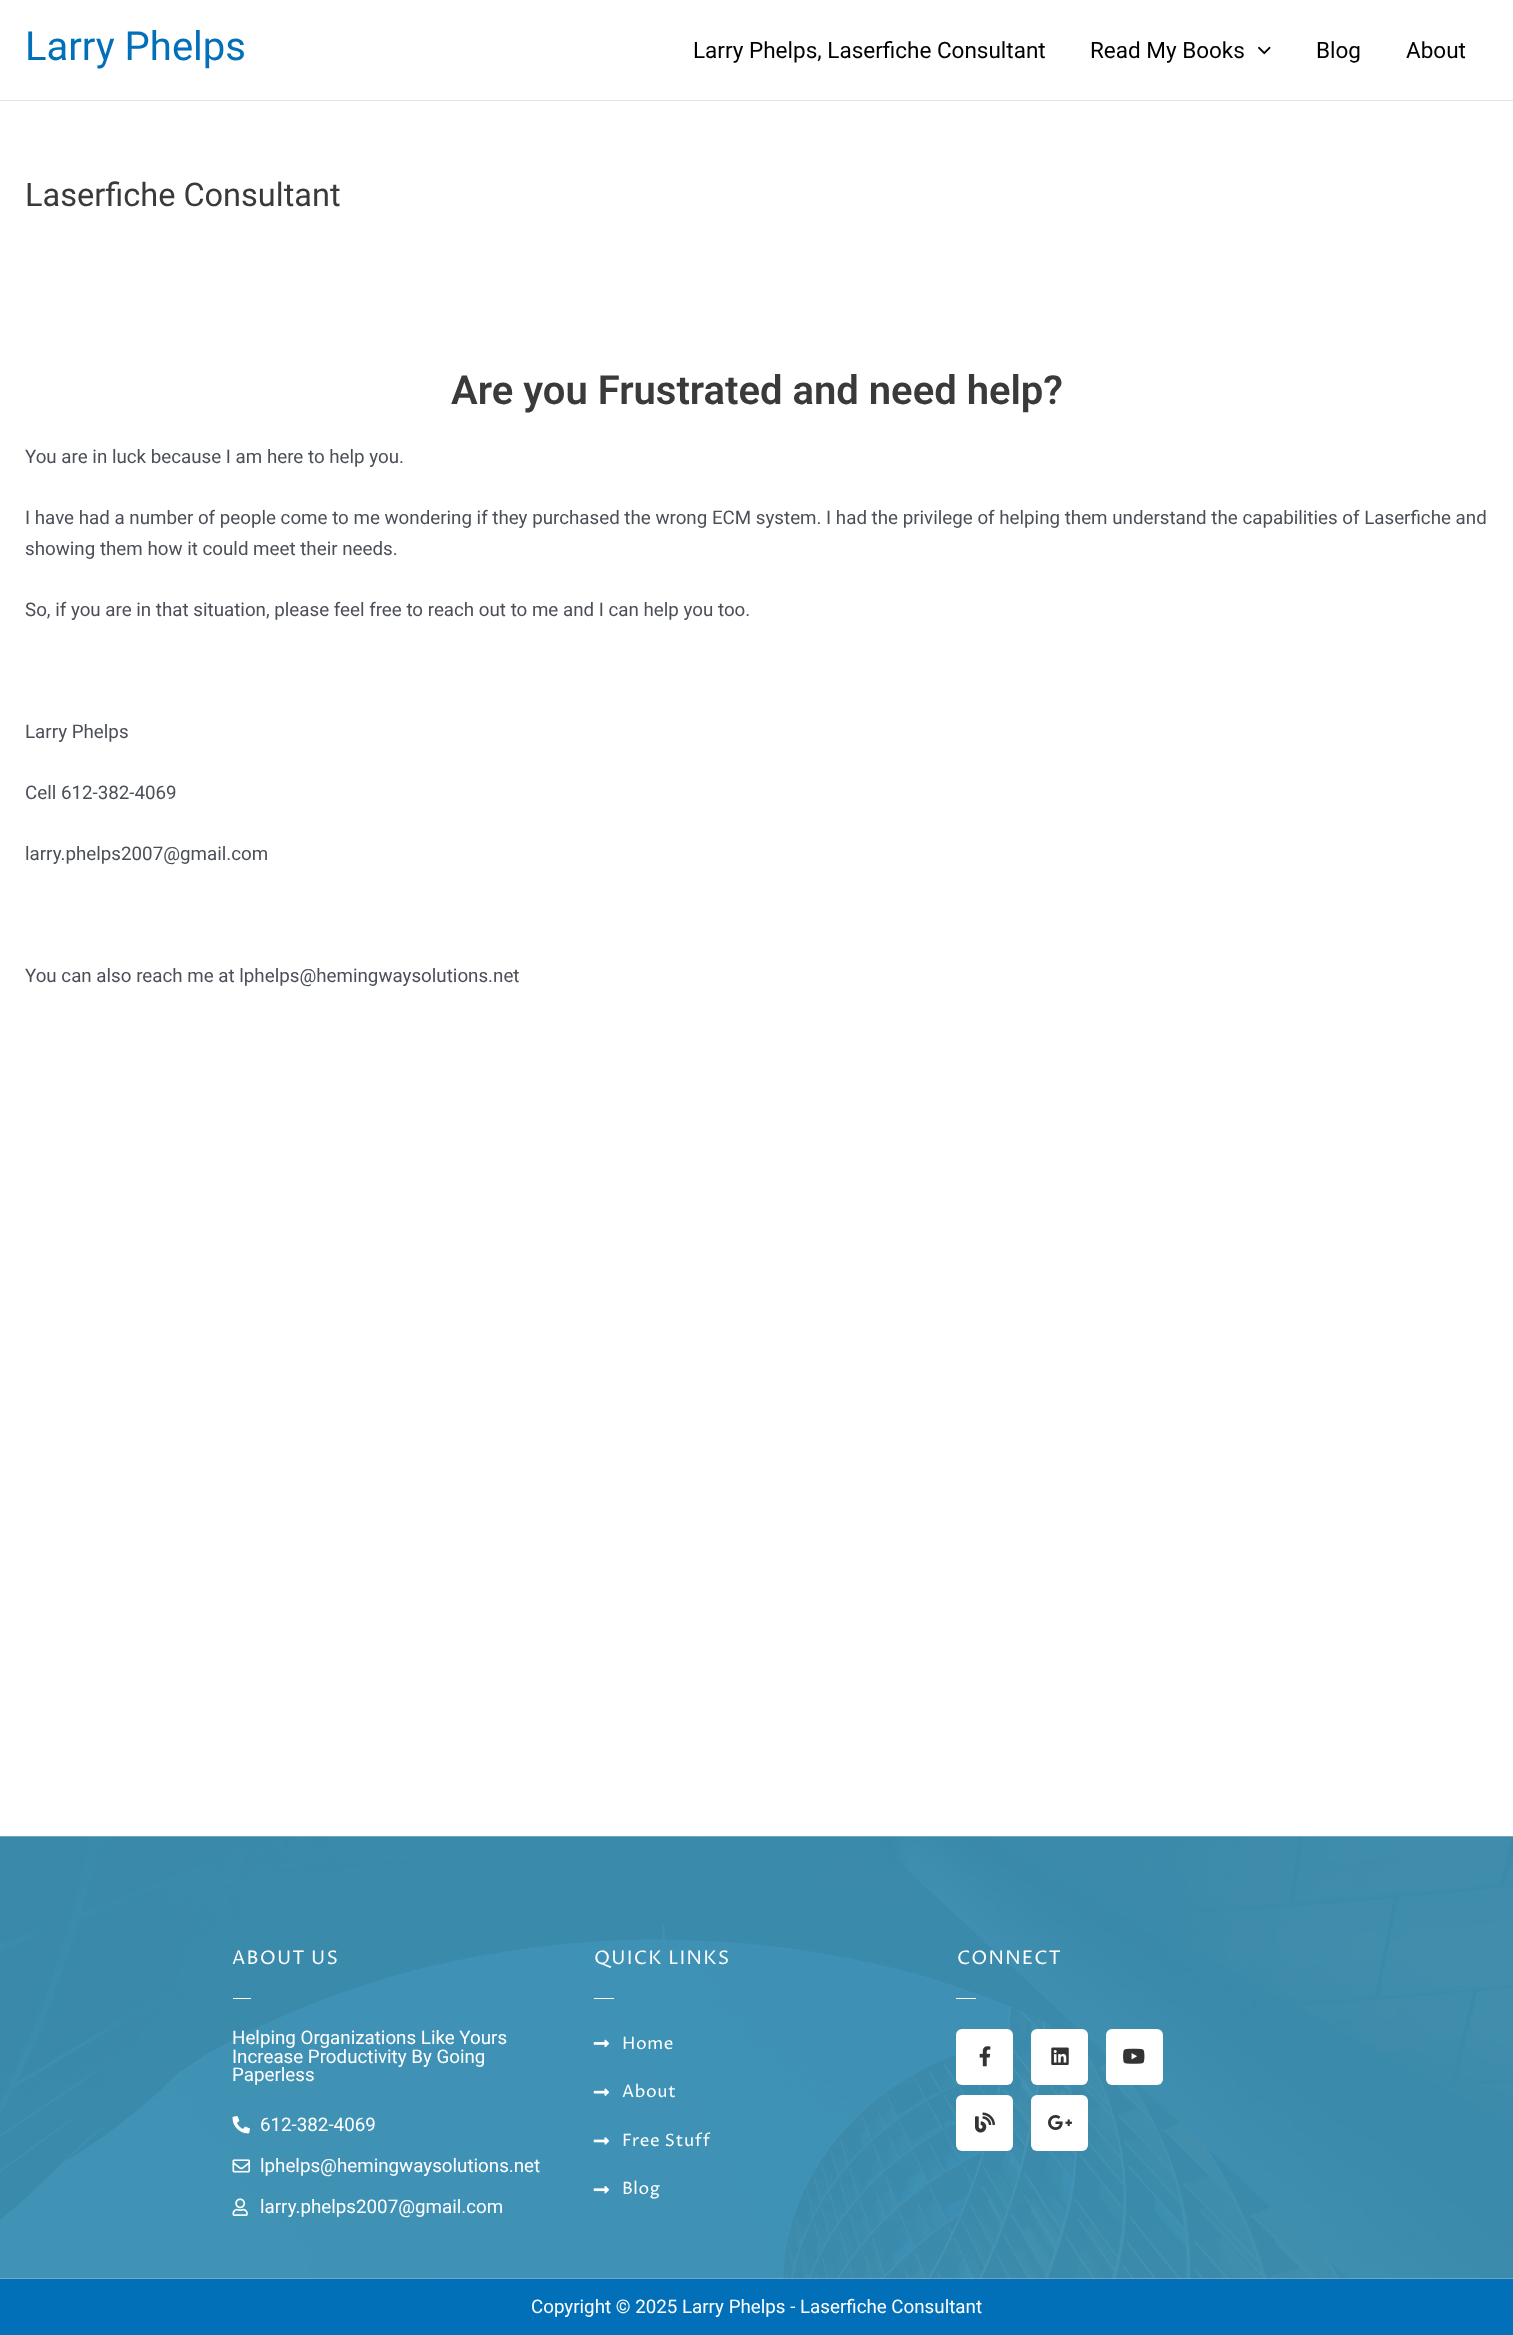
(async () => {
    const canvas = document.querySelector("canvas");
    canvas.width = 1513;
    canvas.height = 2335;
    const context = canvas.getContext("2d");
    context.miterLimit = 4;
    context.fontKerning = "normal";
    function write(s, x, y, font, color) {
        context.font = font;
        context.fillStyle = color;
        context.fillText(s, x, y);
    }
    function block(x, y, w, h, color) {
        context.fillStyle = color;
        context.fillRect(x, y, w, h);
    }
    function card(x, y, w, h, r, color) {
        context.fillStyle = color;
        context.beginPath();
        context.roundRect(x, y, w, h, r);
        context.fill();
    }
    async function photo(src, x, y, w, h) {
        const img = new Image();
        img.src = src;
        await img.decode();
        context.drawImage(img, x, y, w, h);
    }

    block(0, 0, 1513, 2335, "rgb(255, 255, 255)");
    block(0, 100, 1513, 1, "rgb(229, 229, 229)");
    write("Larry Phelps", 25, 60, "40px Roboto", "rgb(1, 112, 185)");
    write("Larry Phelps, Laserfiche Consultant", 693, 58, "22.5px Roboto", "rgb(0, 0, 0)");
    write("Read My Books", 1090, 58, "22.5px Roboto", "rgb(0, 0, 0)");
    await photo("media/1.png", 1258, 46, 13, 9);
    write("Blog", 1316, 58, "22.5px Roboto", "rgb(0, 0, 0)");
    write("About", 1406, 58, "22.5px Roboto", "rgb(0, 0, 0)");
    write("Laserfiche Consultant", 25, 206, "32.5px Roboto", "rgb(58, 58, 58)");
    write("Are you Frustrated and need help?", 451, 404, "600 40px Roboto", "rgb(58, 58, 58)");
    write("You are in luck because I am here to help you.", 25, 463, "18.75px Roboto", "rgb(75, 79, 88)");
    write("I have had a number of people come to me wondering if they purchased the wrong ECM system. I had the privilege of helping them understand the capabilities of Laserfiche and", 25, 524, "18.75px Roboto", "rgb(75, 79, 88)");
    write("showing them how it could meet their needs.", 25, 555, "18.75px Roboto", "rgb(75, 79, 88)");
    write("So, if you are in that situation, please feel free to reach out to me and I can help you too.", 25, 616, "18.75px Roboto", "rgb(75, 79, 88)");
    write("Larry Phelps", 25, 738, "18.75px Roboto", "rgb(75, 79, 88)");
    write("Cell 612-382-4069", 25, 799, "18.75px Roboto", "rgb(75, 79, 88)");
    write("larry.phelps2007@gmail.com", 25, 860, "18.75px Roboto", "rgb(75, 79, 88)");
    write("You can also reach me at lphelps@hemingwaysolutions.net", 25, 982, "18.75px Roboto", "rgb(75, 79, 88)");
    await photo("media/2.png", 0, 1836, 1513, 443);
    context.letterSpacing = "1.25px";
    write("ABOUT US", 232, 1964, "18.75px Proza Libre", "rgb(255, 255, 255)");
    block(233, 1998, 18, 1, "rgb(255, 255, 255)");
    context.letterSpacing = "0px";
    write("Helping Organizations Like Yours", 232, 2044, "18.75px Roboto", "rgb(255, 255, 255)");
    write("Increase Productivity By Going", 232, 2063, "18.75px Roboto", "rgb(255, 255, 255)");
    write("Paperless", 232, 2081, "18.75px Roboto", "rgb(255, 255, 255)");
    await photo("media/3.png", 232, 2116, 18, 18);
    write("612-382-4069", 260, 2131, "18.75px Roboto", "rgb(255, 255, 255)");
    await photo("media/4.png", 232, 2159, 18, 14);
    write("lphelps@hemingwaysolutions.net", 260, 2172, "18.75px Roboto", "rgb(255, 255, 255)");
    await photo("media/5.png", 232, 2198, 16, 18);
    write("larry.phelps2007@gmail.com", 260, 2213, "18.75px Roboto", "rgb(255, 255, 255)");
    context.letterSpacing = "1.25px";
    write("QUICK LINKS", 594, 1964, "18.75px Proza Libre", "rgb(255, 255, 255)");
    block(594, 1998, 20, 1, "rgb(255, 255, 255)");
    await photo("media/6.png", 593, 2039, 16, 9);
    context.letterSpacing = "0.6px";
    write("Home", 622, 2049, "17px Proza Libre", "rgb(255, 255, 255)");
    await photo("media/7.png", 593, 2088, 16, 8);
    write("About", 622, 2097, "17px Proza Libre", "rgb(255, 255, 255)");
    await photo("media/8.png", 593, 2137, 16, 8);
    write("Free Stuff", 622, 2146, "17px Proza Libre", "rgb(255, 255, 255)");
    await photo("media/9.png", 593, 2186, 16, 8);
    write("Blog", 622, 2194, "17px Proza Libre", "rgb(255, 255, 255)");
    context.letterSpacing = "1.25px";
    write("CONNECT", 957, 1964, "18.75px Proza Libre", "rgb(255, 255, 255)");
    block(956, 1998, 20, 1, "rgb(255, 255, 255)");
    card(956, 2029, 57, 56, 6, "rgb(255, 255, 255)");
    await photo("media/10.png", 979, 2046, 12, 21);
    card(1031, 2029, 57, 56, 6, "rgb(255, 255, 255)");
    await photo("media/11.png", 1051, 2047, 18, 18);
    card(1106, 2029, 57, 56, 6, "rgb(255, 255, 255)");
    await photo("media/12.png", 1123, 2048, 22, 16);
    card(956, 2095, 57, 56, 6, "rgb(255, 255, 255)");
    await photo("media/13.png", 975, 2112, 20, 21);
    card(1031, 2095, 57, 56, 6, "rgb(255, 255, 255)");
    await photo("media/14.png", 1048, 2115, 24, 15);
    block(0, 2279, 1513, 56, "rgb(1, 112, 185)");
    context.letterSpacing = "0px";
    write("Copyright © 2025 Larry Phelps - Laserfiche Consultant", 531, 2313, "18.75px Roboto", "rgb(255, 255, 255)");
})();
